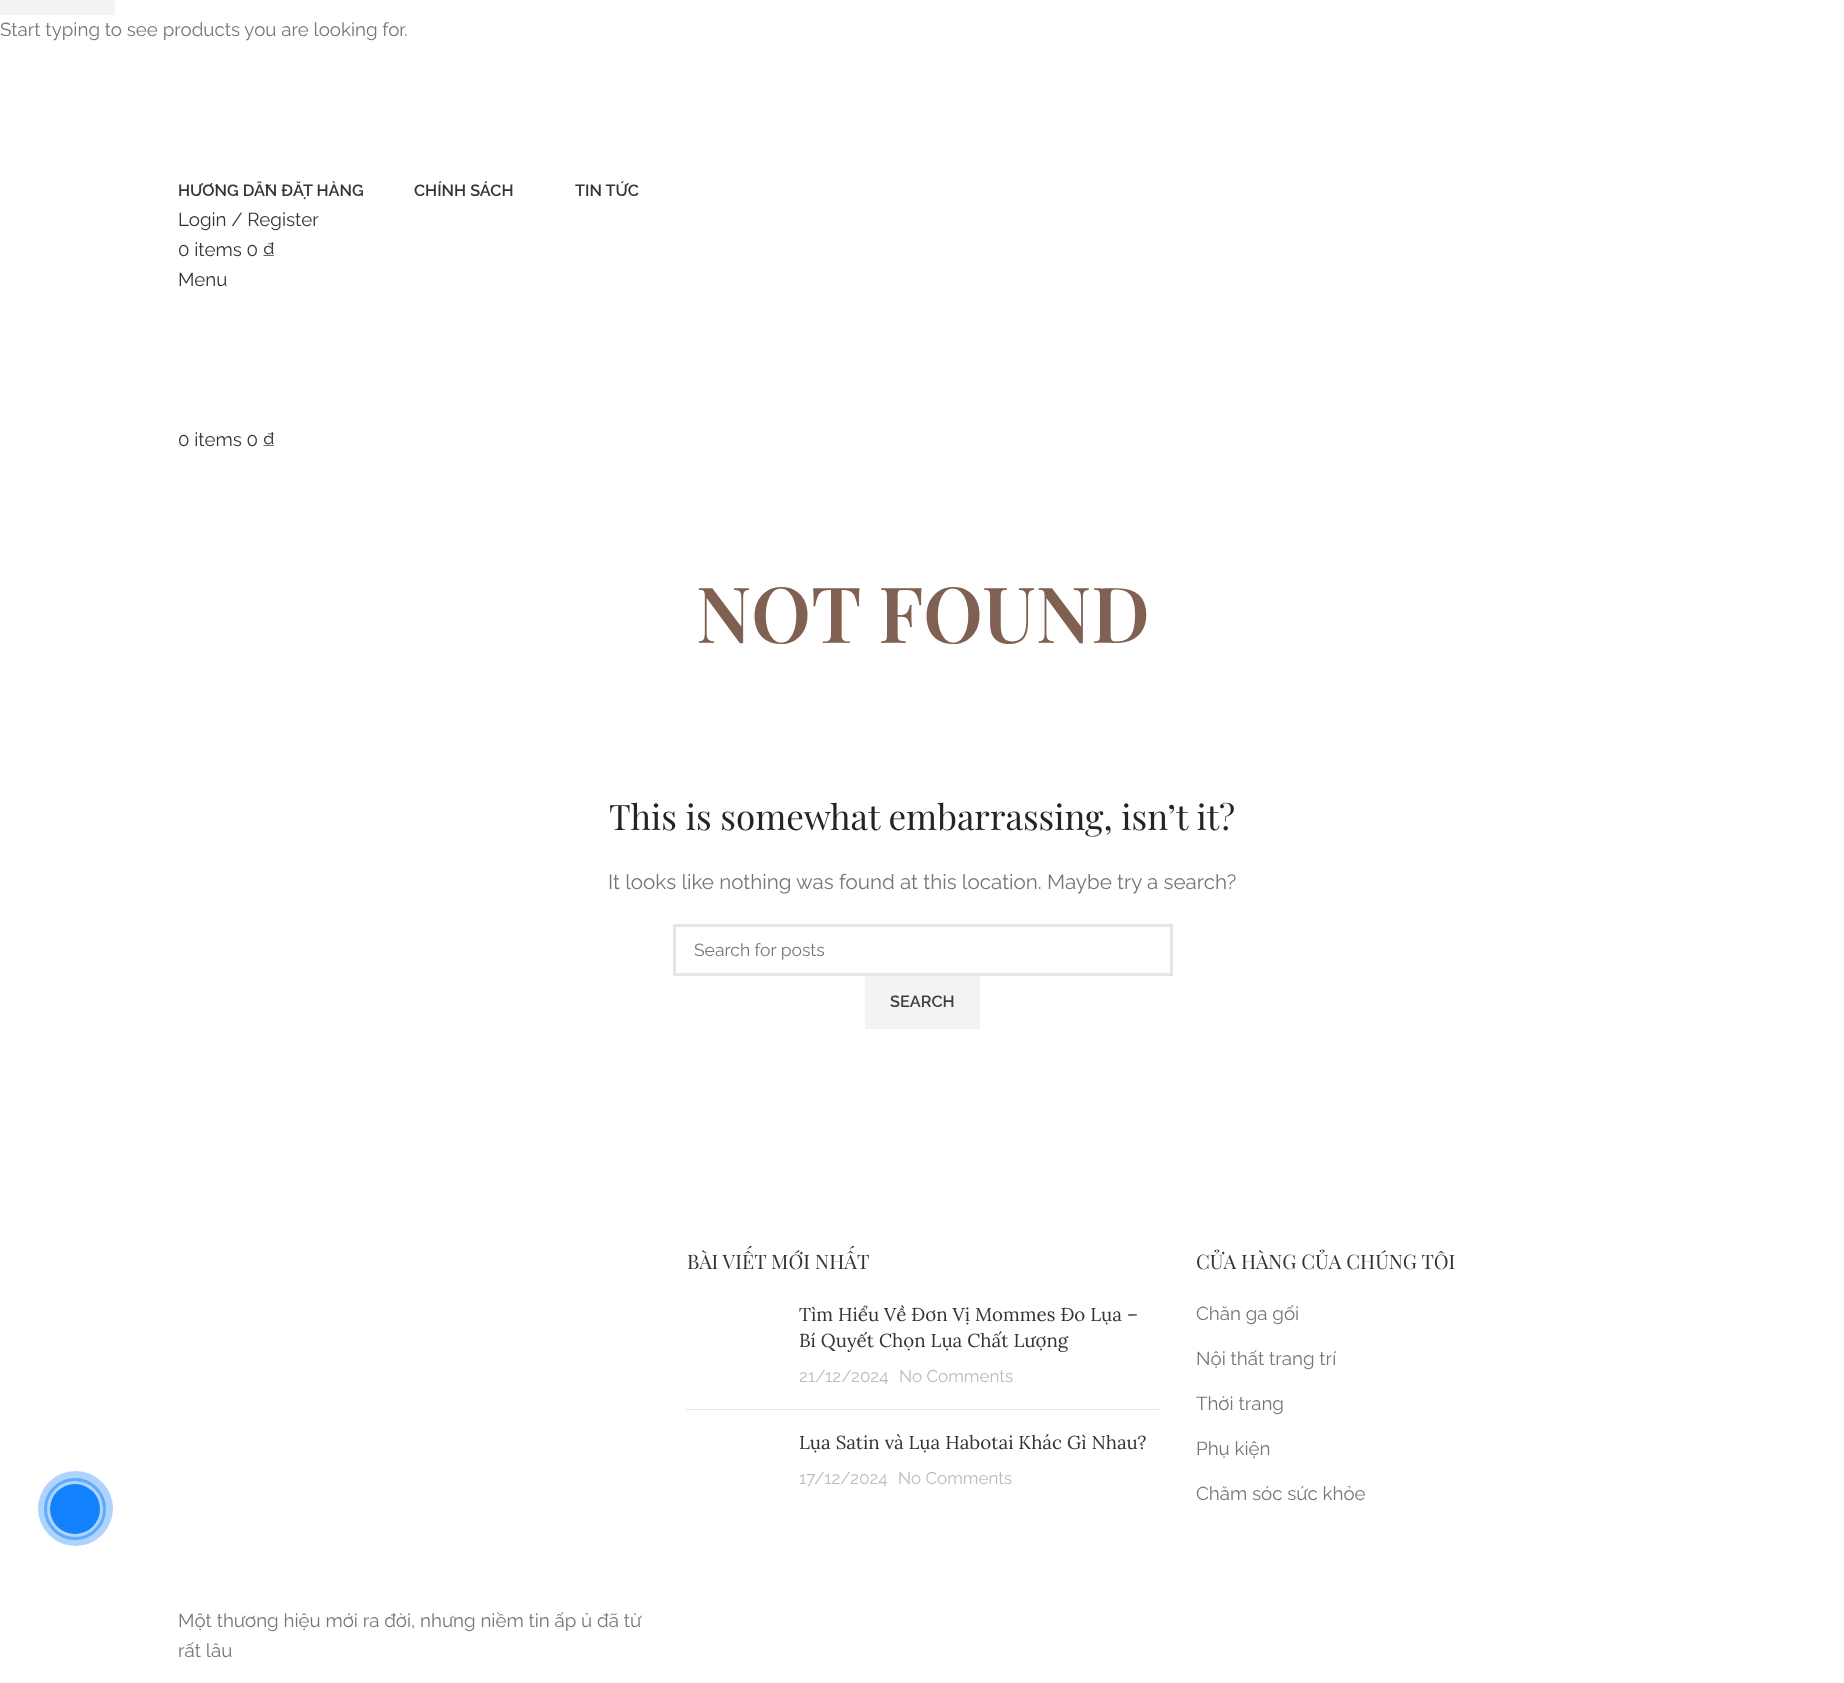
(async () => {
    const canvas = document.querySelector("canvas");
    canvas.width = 1844;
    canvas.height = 1683;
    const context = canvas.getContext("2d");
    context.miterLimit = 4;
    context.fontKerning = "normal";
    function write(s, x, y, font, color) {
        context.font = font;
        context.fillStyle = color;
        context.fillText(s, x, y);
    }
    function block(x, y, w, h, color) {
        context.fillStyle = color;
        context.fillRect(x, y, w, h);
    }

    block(0, 0, 1844, 1683, "rgb(255, 255, 255)");
    block(0, 0, 115, 15, "rgb(243, 243, 243)");
    write("Start typing to see products you are looking for.", 0, 36, "18.75px Raleway", "rgb(118, 118, 118)");
    context.beginPath();
    context.arc(75, 1509, 29.5, 0, Math.PI * 2);
    context.strokeStyle = "rgb(136, 193, 254)";
    context.lineWidth = 3;
    context.stroke();
    context.fillStyle = "rgba(17, 130, 252, 0.34)";
    context.beginPath();
    context.arc(75.5, 1508.5, 37.5, 0, Math.PI * 2);
    context.fill();
    context.fillStyle = "rgb(17, 130, 252)";
    context.beginPath();
    context.arc(75, 1509, 25, 0, Math.PI * 2);
    context.fill();
    write("HƯỚNG DẪN ĐẶT HÀNG", 178, 196, "600 16.25px Raleway", "rgb(51, 51, 51)");
    write("CHÍNH SÁCH", 414, 196, "600 16.25px Raleway", "rgb(51, 51, 51)");
    write("TIN TỨC", 575, 196, "600 16.25px Raleway", "rgb(51, 51, 51)");
    write("Login / Register", 178, 226, "18.75px Raleway", "rgb(51, 51, 51)");
    write("0 items 0 ₫", 178, 256, "18.75px Raleway", "rgb(51, 51, 51)");
    write("Menu", 178, 286, "18.75px Raleway", "rgb(51, 51, 51)");
    write("0 items 0 ₫", 178, 446, "18.75px Raleway", "rgb(51, 51, 51)");
    write("NOT FOUND", 696, 643, "600 77.5px Playfair Display", "rgb(127, 96, 81)");
    write("This is somewhat embarrassing, isn’t it?", 609, 830, "35px Playfair Display", "rgb(36, 36, 36)");
    write("It looks like nothing was found at this location. Maybe try a search?", 608, 889, "20.6px Raleway", "rgb(118, 118, 118)");
    context.strokeStyle = "rgb(230, 230, 230)";
    context.strokeRect(674.5, 925.5, 497, 49);
    write("Search for posts", 694, 956, "17.5px Raleway", "rgb(118, 118, 118)");
    block(865, 976, 115, 53, "rgb(243, 243, 243)");
    write("SEARCH", 890, 1007, "600 16.25px Raleway", "rgb(62, 62, 62)");
    write("BÀI VIẾT MỚI NHẤT", 687, 1269, "20px Playfair Display", "rgb(51, 51, 51)");
    block(686, 1409, 473, 1, "rgb(228, 228, 228)");
    write("Tìm Hiểu Về Đơn Vị Mommes Đo Lụa –", 799, 1321, "18.75px Lora", "rgb(51, 51, 51)");
    write("Bí Quyết Chọn Lụa Chất Lượng", 799, 1347, "18.75px Lora", "rgb(51, 51, 51)");
    write("21/12/2024", 799, 1382, "17px Raleway", "rgb(187, 187, 187)");
    write("No Comments", 899, 1382, "17px Raleway", "rgb(187, 187, 187)");
    write("Lụa Satin và Lụa Habotai Khác Gì Nhau?", 799, 1449, "18.75px Lora", "rgb(51, 51, 51)");
    write("17/12/2024", 799, 1484, "17px Raleway", "rgb(187, 187, 187)");
    write("No Comments", 898, 1484, "17px Raleway", "rgb(187, 187, 187)");
    write("CỬA HÀNG CỦA CHÚNG TÔI", 1196, 1269, "20px Playfair Display", "rgb(51, 51, 51)");
    write("Chăn ga gối", 1196, 1320, "18.75px Raleway", "rgb(118, 118, 118)");
    write("Nội thất trang trí", 1196, 1365, "18.75px Raleway", "rgb(118, 118, 118)");
    write("Thời trang", 1196, 1410, "18.75px Raleway", "rgb(118, 118, 118)");
    write("Phụ kiện", 1196, 1455, "18.75px Raleway", "rgb(118, 118, 118)");
    write("Chăm sóc sức khỏe", 1196, 1500, "18.75px Raleway", "rgb(118, 118, 118)");
    write("Một thương hiệu mới ra đời, nhưng niềm tin ấp ủ đã từ", 178, 1627, "18.75px Raleway", "rgb(118, 118, 118)");
    write("rất lâu", 178, 1657, "18.75px Raleway", "rgb(118, 118, 118)");
})();
